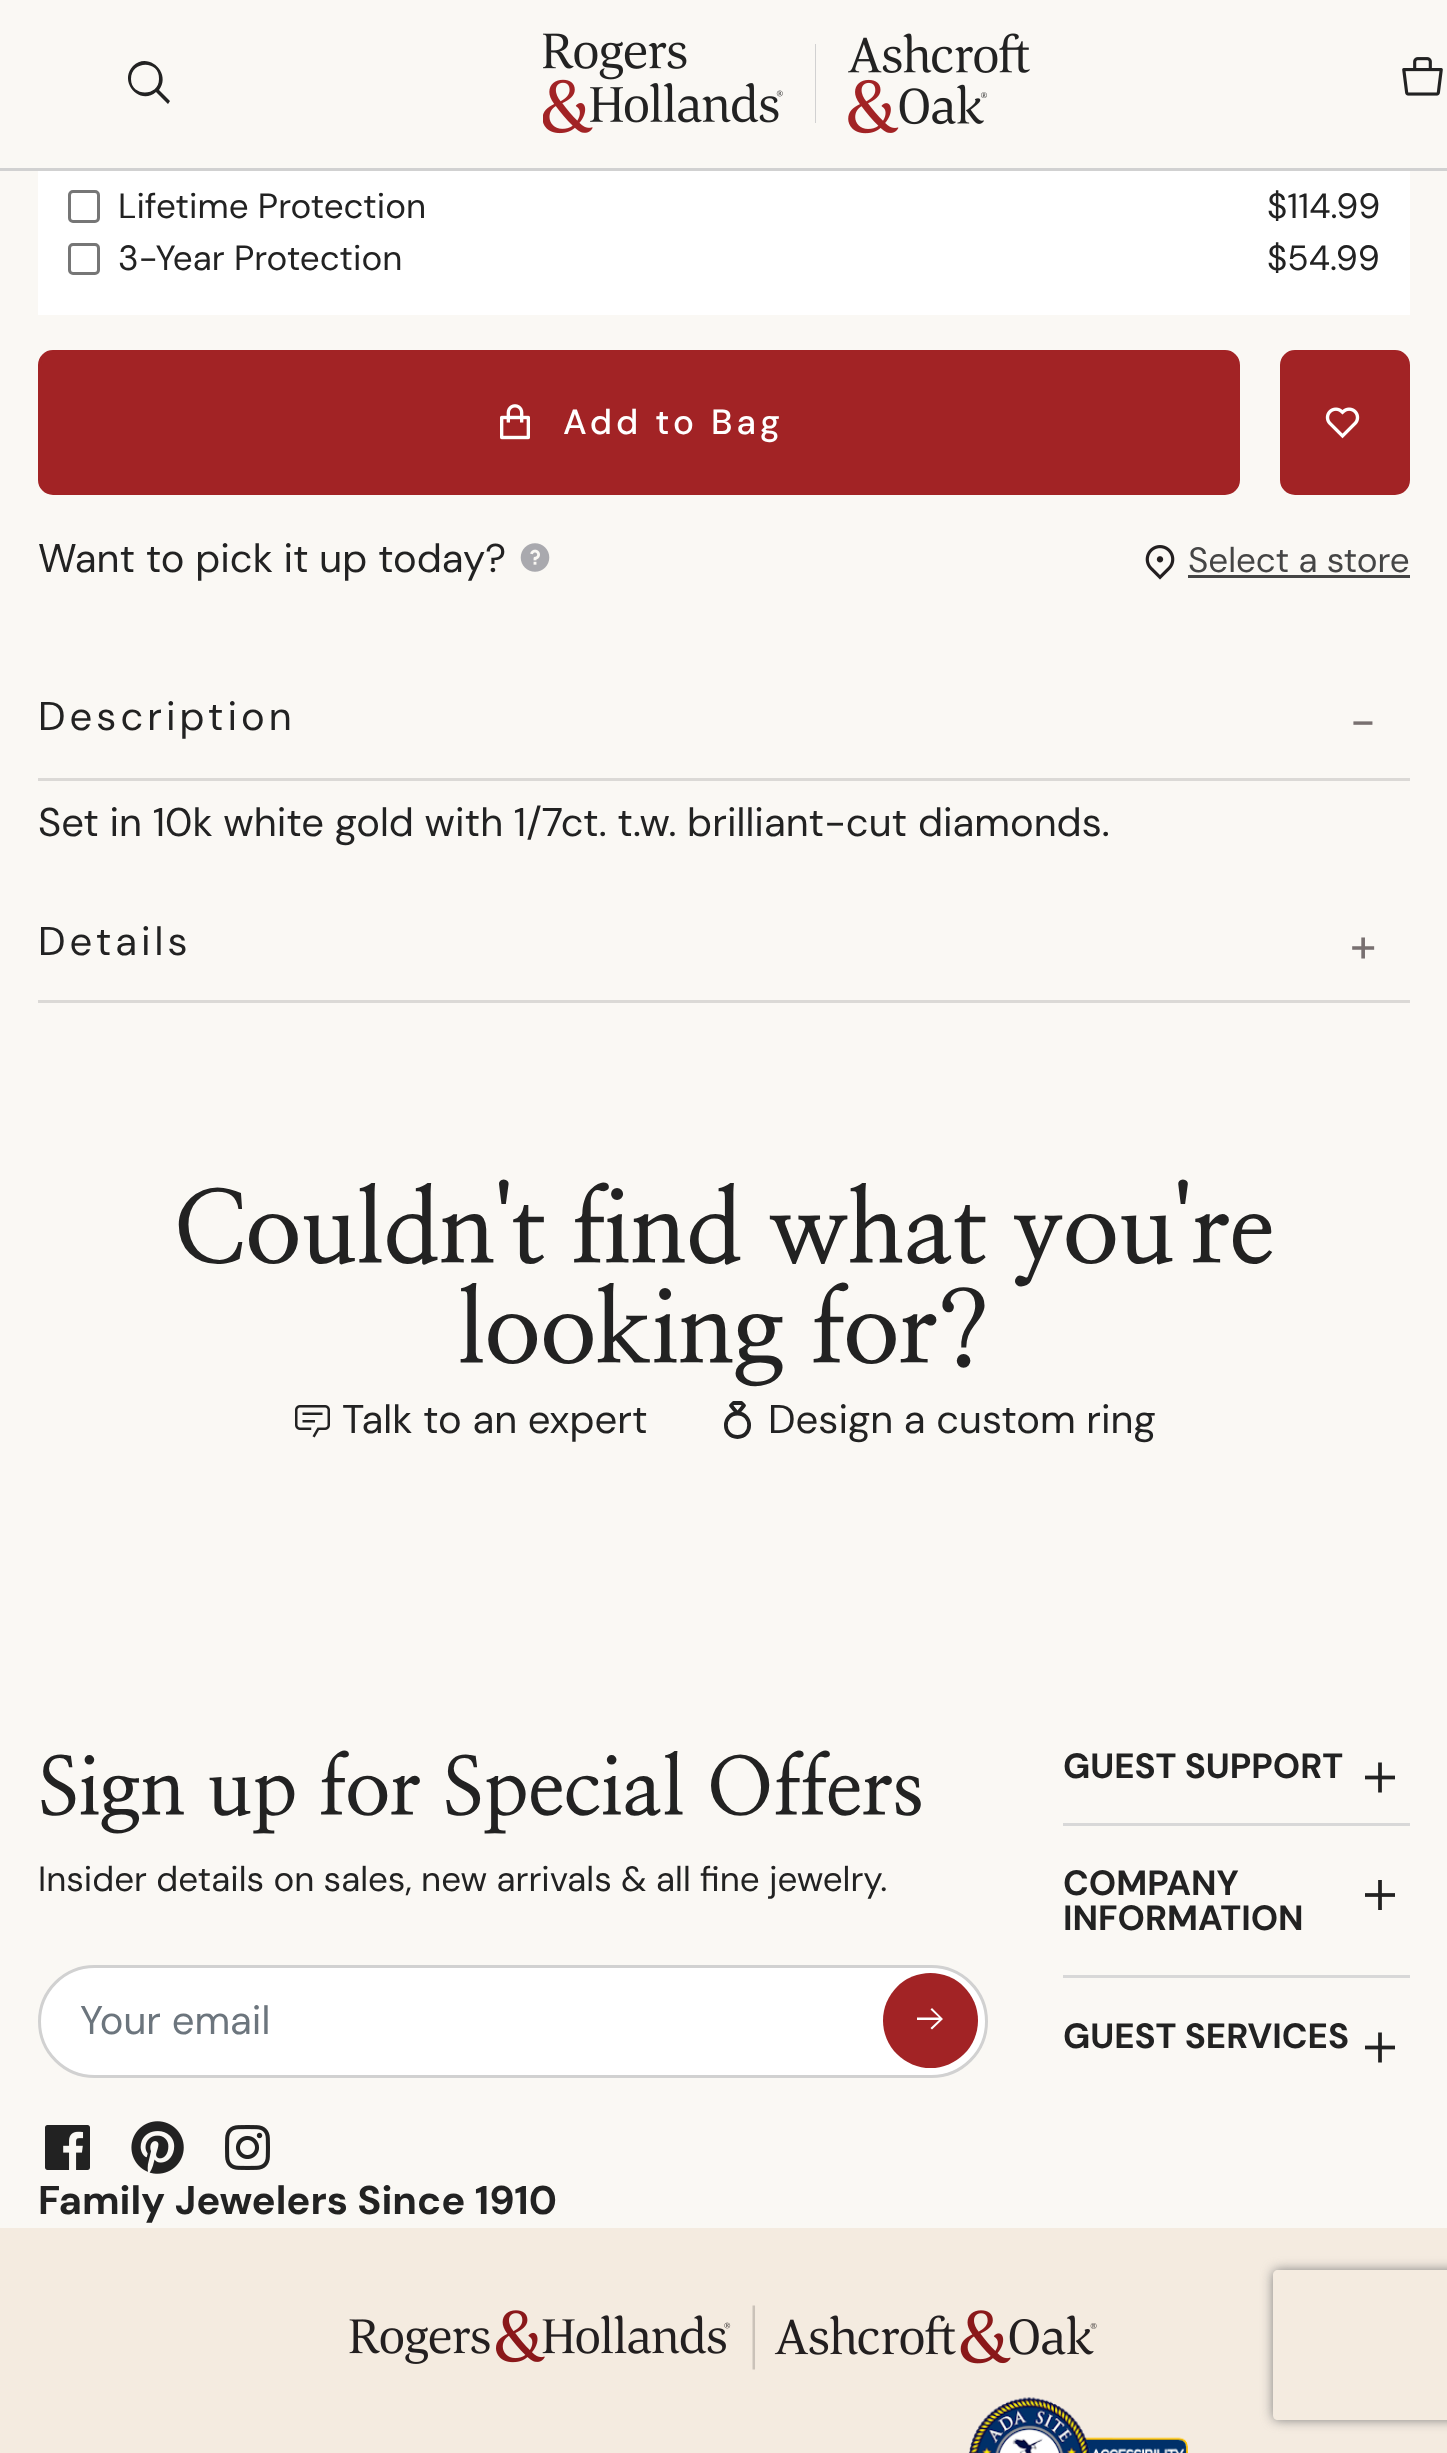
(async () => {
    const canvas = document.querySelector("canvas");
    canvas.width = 1447;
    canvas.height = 2453;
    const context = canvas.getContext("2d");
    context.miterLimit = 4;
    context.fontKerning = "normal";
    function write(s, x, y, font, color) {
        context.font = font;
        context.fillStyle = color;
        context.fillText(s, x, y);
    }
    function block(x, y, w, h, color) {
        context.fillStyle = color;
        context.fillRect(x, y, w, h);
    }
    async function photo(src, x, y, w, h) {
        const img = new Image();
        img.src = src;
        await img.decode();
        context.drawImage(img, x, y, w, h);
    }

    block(0, 0, 1447, 2453, "rgb(250, 248, 244)");
    block(0, 168, 1447, 3, "rgb(209, 209, 209)");
    context.fillStyle = "rgb(34, 34, 34)";
    context.beginPath();
    context.moveTo(170, 101);
    context.lineTo(159, 90);
    context.bezierCurveTo(172, 73, 148, 51, 133, 66);
    context.bezierCurveTo(118, 82, 140, 106, 156, 92);
    context.lineTo(168, 104);
    context.closePath();
    context.moveTo(131, 79);
    context.bezierCurveTo(131, 60, 160, 60, 159, 79);
    context.bezierCurveTo(159, 97, 131, 97, 131, 79);
    context.closePath();
    context.fill();
    await photo("media/1.png", 543, 33, 487, 101);
    await photo("media/2.png", 1402, 57, 41, 39);
    block(38, 171, 1372, 144, "rgb(255, 255, 255)");
    context.beginPath();
    context.roundRect(69.5, 191.5, 29, 30, 3.5);
    context.strokeStyle = "rgb(118, 118, 118)";
    context.lineWidth = 3;
    context.stroke();
    write("Lifetime Protection", 118, 218, "35px 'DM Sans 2'", "rgb(34, 34, 34)");
    write("$114.99", 1267, 218, "35px 'DM Sans 2'", "rgb(34, 34, 34)");
    context.beginPath();
    context.roundRect(69.5, 244.5, 29, 29, 3.5);
    context.stroke();
    write("3-Year Protection", 118, 270, "35px 'DM Sans 2'", "rgb(34, 34, 34)");
    write("$54.99", 1267, 270, "35px 'DM Sans 2'", "rgb(34, 34, 34)");
    context.fillStyle = "rgb(162, 35, 37)";
    context.beginPath();
    context.roundRect(39.5, 351.5, 1199, 142, 13.5);
    context.fill();
    context.strokeStyle = "rgb(162, 35, 37)";
    context.stroke();
    await photo("media/3.png", 500, 404, 30, 36);
    context.letterSpacing = "4px";
    write("Add to Bag", 563, 434, "500 35px DM Sans", "rgb(255, 255, 255)");
    context.fillStyle = "rgb(162, 35, 37)";
    context.beginPath();
    context.roundRect(1281.5, 351.5, 127, 142, 13.5);
    context.fill();
    context.stroke();
    await photo("media/4.png", 1325, 407, 35, 32);
    context.letterSpacing = "0px";
    write("Want to pick it up today?", 38, 572, "40px DM Sans", "rgb(34, 34, 34)");
    await photo("media/5.png", 520, 543, 30, 29);
    await photo("media/6.png", 1145, 545, 30, 35);
    write("Select a store", 1188, 572, "35px 'DM Sans 2'", "rgb(69, 69, 69)");
    block(1188, 575, 222, 3, "rgb(69, 69, 69)");
    block(38, 778, 1372, 3, "rgb(219, 217, 214)");
    context.letterSpacing = "4px";
    write("Description", 38, 730, "40px DM Sans", "rgb(34, 34, 34)");
    write("-", 1350, 738, "48px 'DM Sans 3'", "rgb(120, 112, 112)");
    context.letterSpacing = "0px";
    write("Set in 10k white gold with 1/7ct. t.w. brilliant-cut diamonds.", 38, 836, "40px DM Sans", "rgb(34, 34, 34)");
    block(38, 1000, 1372, 3, "rgb(219, 217, 214)");
    context.letterSpacing = "4px";
    write("Details", 38, 955, "40px DM Sans", "rgb(34, 34, 34)");
    write("+", 1350, 962, "48px 'DM Sans 3'", "rgb(120, 112, 112)");
    context.letterSpacing = "-0.4px";
    write("Couldn't find what you're", 173, 1263, "bold 100px NanumMyeongjo", "rgb(34, 34, 34)");
    write("looking for?", 458, 1363, "bold 100px NanumMyeongjo", "rgb(34, 34, 34)");
    await photo("media/7.png", 295, 1405, 35, 33);
    context.letterSpacing = "0px";
    write("Talk to an expert", 342, 1433, "40px DM Sans", "rgb(34, 34, 34)");
    write("Design a custom ring", 768, 1433, "40px DM Sans", "rgb(34, 34, 34)");
    context.beginPath();
    context.moveTo(737.5, 1437);
    context.bezierCurveTo(753, 1437, 753, 1413.5, 737.5, 1413.5);
    context.bezierCurveTo(722, 1413.5, 722, 1437, 737.5, 1437);
    context.closePath();
    context.moveTo(741.5, 1403);
    context.lineTo(744, 1405.5);
    context.lineTo(737.5, 1413.5);
    context.lineTo(731, 1405.5);
    context.lineTo(733.5, 1403);
    context.closePath();
    context.strokeStyle = "rgb(34, 34, 34)";
    context.lineWidth = 3.8;
    context.lineCap = "round";
    context.lineJoin = "round";
    context.stroke();
    write("Sign up for Special Offers", 38, 1815, "bold 80px NanumMyeongjo", "rgb(34, 34, 34)");
    write("Insider details on sales, new arrivals & all fine jewelry.", 38, 1891, "35px 'DM Sans 2'", "rgb(34, 34, 34)");
    context.fillStyle = "rgb(255, 255, 255)";
    context.beginPath();
    context.roundRect(39.5, 1966.5, 947, 110, 55);
    context.fill();
    context.strokeStyle = "rgb(209, 209, 209)";
    context.lineWidth = 3;
    context.lineJoin = "miter";
    context.stroke();
    write("Your email", 80, 2034, "40px DM Sans", "rgb(108, 117, 125)");
    context.fillStyle = "rgb(162, 35, 37)";
    context.beginPath();
    context.arc(930.5, 2020.5, 47.5, 0, Math.PI * 2);
    context.fill();
    context.fillStyle = "rgb(255, 255, 255)";
    context.beginPath();
    context.moveTo(932, 2008);
    context.lineTo(930.5, 2009.5);
    context.lineTo(939, 2017.5);
    context.lineTo(917, 2017.5);
    context.lineTo(917, 2020);
    context.lineTo(939, 2020);
    context.lineTo(930.5, 2028);
    context.lineTo(932, 2029.5);
    context.lineTo(943, 2019);
    context.closePath();
    context.fill();
    await photo("media/8.png", 45, 2125, 45, 45);
    await photo("media/9.png", 131, 2121, 53, 53);
    await photo("media/10.png", 225, 2125, 45, 45);
    write("Family Jewelers Since 1910", 38, 2214, "bold 40px DM Sans", "rgb(34, 34, 34)");
    block(1063, 1823, 347, 3, "rgb(216, 216, 216)");
    write("GUEST SUPPORT", 1063, 1778, "bold 35px 'DM Sans 2'", "rgb(34, 34, 34)");
    await photo("media/11.png", 1365, 1762, 30, 31);
    block(1063, 1975, 347, 3, "rgb(216, 216, 216)");
    write("COMPANY", 1063, 1895, "bold 35px 'DM Sans 2'", "rgb(34, 34, 34)");
    await photo("media/12.png", 1365, 1880, 30, 30);
    write("INFORMATION", 1063, 1930, "bold 35px 'DM Sans 2'", "rgb(34, 34, 34)");
    write("GUEST SERVICES", 1063, 2048, "bold 35px 'DM Sans 2'", "rgb(34, 34, 34)");
    await photo("media/11.png", 1365, 2032, 30, 31);
    block(0, 2228, 1447, 225, "rgb(244, 235, 224)");
    await photo("media/13.png", 349, 2305, 748, 65);
    await photo("media/14.png", 968, 2397, 220, 56);
    context.save();
    context.beginPath();
    context.moveTo(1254, 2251);
    context.lineTo(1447, 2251);
    context.lineTo(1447, 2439);
    context.lineTo(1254, 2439);
    context.closePath();
    context.moveTo(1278, 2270);
    context.lineTo(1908, 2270);
    context.bezierCurveTo(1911, 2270, 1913, 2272, 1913, 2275);
    context.lineTo(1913, 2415);
    context.bezierCurveTo(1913, 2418, 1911, 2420, 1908, 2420);
    context.lineTo(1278, 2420);
    context.bezierCurveTo(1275, 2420, 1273, 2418, 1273, 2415);
    context.lineTo(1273, 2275);
    context.bezierCurveTo(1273, 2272, 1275, 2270, 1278, 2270);
    context.closePath();
    context.clip("evenodd");
    context.fillStyle = "rgb(128, 128, 128)";
    context.filter = "blur(6px)";
    context.beginPath();
    context.roundRect(1273, 2270, 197, 150, 5);
    context.fill();
    context.filter = "none";
    context.restore();
})();
